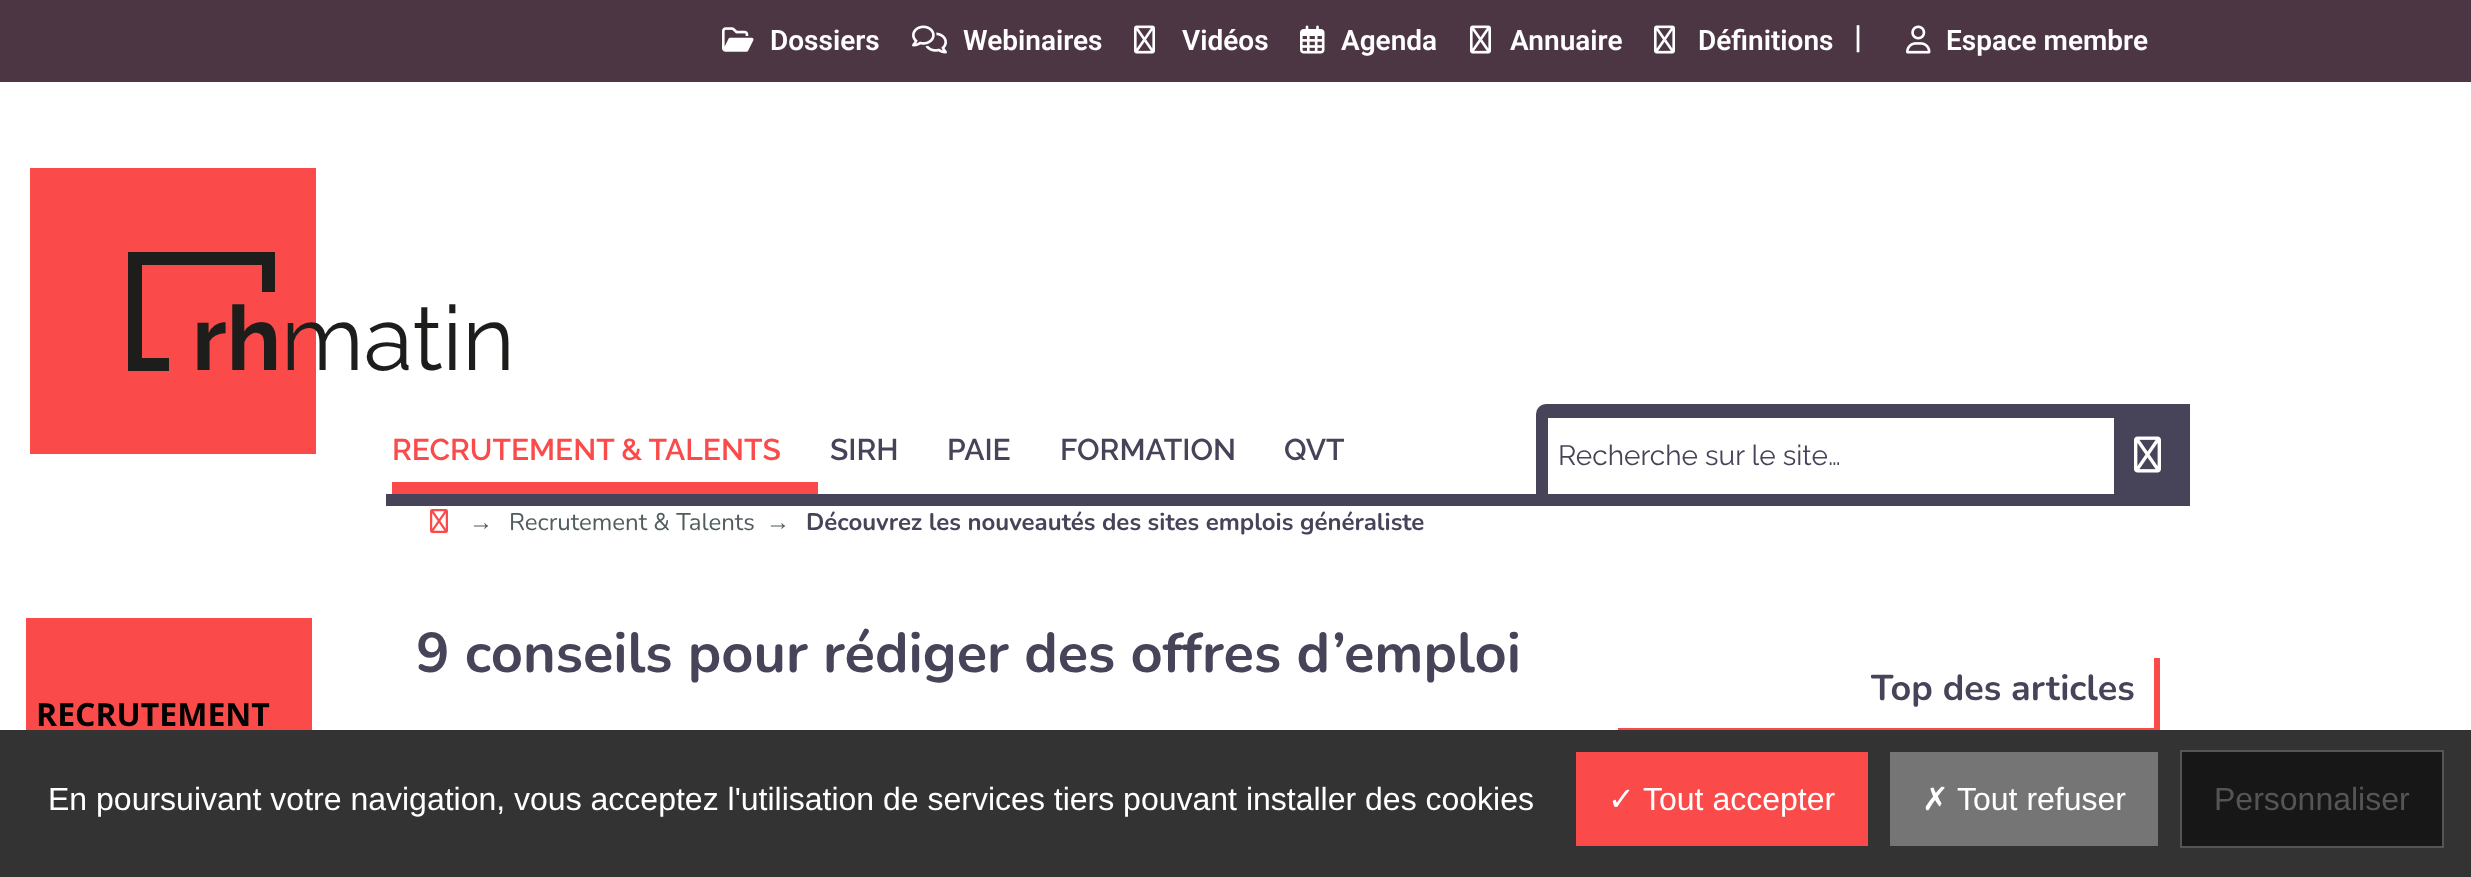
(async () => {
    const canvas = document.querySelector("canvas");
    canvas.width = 2471;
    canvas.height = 877;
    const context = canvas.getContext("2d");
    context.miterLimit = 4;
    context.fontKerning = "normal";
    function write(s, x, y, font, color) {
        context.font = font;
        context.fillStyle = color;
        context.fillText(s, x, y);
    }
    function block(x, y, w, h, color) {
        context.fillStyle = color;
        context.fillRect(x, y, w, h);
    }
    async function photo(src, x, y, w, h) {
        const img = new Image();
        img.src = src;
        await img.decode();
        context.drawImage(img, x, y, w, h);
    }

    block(0, 0, 2471, 877, "rgb(255, 255, 255)");
    block(0, 0, 2471, 82, "rgb(77, 54, 67)");
    await photo("media/1.png", 722, 27, 32, 25);
    write("Dossiers", 770, 50, "600 28px Roboto", "rgb(255, 255, 255)");
    await photo("media/2.png", 912, 25, 35, 29);
    write("Webinaires", 963, 50, "600 28px Roboto", "rgb(255, 255, 255)");
    await photo("media/3.png", 1134, 25, 21, 29);
    write("Vidéos", 1182, 50, "600 28px Roboto", "rgb(255, 255, 255)");
    await photo("media/4.png", 1300, 25, 25, 29);
    write("Agenda", 1341, 50, "600 28px Roboto", "rgb(255, 255, 255)");
    await photo("media/3.png", 1470, 25, 21, 29);
    write("Annuaire", 1510, 50, "600 28px Roboto", "rgb(255, 255, 255)");
    await photo("media/3.png", 1654, 25, 21, 29);
    write("Définitions", 1698, 50, "600 28px Roboto", "rgb(255, 255, 255)");
    write("|", 1854, 48, "600 32px Roboto", "rgb(255, 255, 255)");
    await photo("media/5.png", 1906, 25, 25, 29);
    write("Espace membre", 1946, 50, "600 28px Roboto", "rgb(255, 255, 255)");
    block(30, 168, 286, 286, "rgb(251, 74, 74)");
    context.fillStyle = "rgb(29, 29, 27)";
    context.beginPath();
    context.moveTo(169, 358);
    context.lineTo(142, 358);
    context.lineTo(142, 265);
    context.lineTo(262, 265);
    context.lineTo(262, 292);
    context.lineTo(275, 292);
    context.lineTo(275, 252);
    context.lineTo(128, 252);
    context.lineTo(128, 371);
    context.lineTo(169, 371);
    context.closePath();
    context.fill();
    write("rh", 192, 370, "100 90px Raleway", "rgb(29, 29, 27)");
    write("matin", 281, 370, "100 90px 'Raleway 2'", "rgb(29, 29, 27)");
    block(386, 494, 1804, 12, "rgb(71, 68, 90)");
    block(392, 482, 426, 12, "rgb(251, 74, 74)");
    write("RECRUTEMENT & TALENTS", 392, 460, "100 30px 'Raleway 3'", "rgb(251, 74, 74)");
    write("SIRH", 830, 460, "100 30px 'Raleway 3'", "rgb(71, 68, 90)");
    write("PAIE", 947, 460, "100 30px 'Raleway 3'", "rgb(71, 68, 90)");
    write("FORMATION", 1060, 460, "100 30px 'Raleway 3'", "rgb(71, 68, 90)");
    write("QVT", 1284, 460, "100 30px 'Raleway 3'", "rgb(71, 68, 90)");
    context.beginPath();
    context.roundRect(1536, 404, 654, 90, [10, 0, 0, 0]);
    context.fill();
    block(1548, 418, 566, 76, "rgb(255, 255, 255)");
    write("Recherche sur le site…", 1558, 465, "100 28px 'Raleway 2'", "rgb(71, 68, 90)");
    await photo("media/6.png", 2134, 436, 27, 37);
    await photo("media/7.png", 430, 509, 18, 24);
    write("→", 469, 530, "24px Liberation Sans", "rgb(81, 92, 93)");
    write("Recrutement & Talents", 509, 530, "200 24px Nunito", "rgb(81, 92, 93)");
    write("→", 766, 530, "24px Liberation Sans", "rgb(81, 92, 93)");
    write("Découvrez les nouveautés des sites emplois généraliste", 806, 530, "200 24px 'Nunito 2'", "rgb(71, 68, 90)");
    write("9 conseils pour rédiger des offres d’emploi", 416, 672, "200 56px 'Nunito 2'", "rgb(71, 68, 90)");
    block(2154, 658, 6, 76, "rgb(251, 74, 74)");
    block(1618, 728, 542, 2, "rgb(251, 74, 74)");
    write("Top des articles", 1871, 700, "200 36px 'Nunito 2'", "rgb(71, 68, 90)");
    block(26, 618, 286, 112, "rgb(251, 74, 74)");
    write("RECRUTEMENT", 36, 726, "bold 32px Open Sans", "rgb(0, 0, 0)");
    block(0, 730, 2471, 147, "rgb(51, 51, 51)");
    write("En poursuivant votre navigation, vous acceptez l'utilisation de services tiers pouvant installer des cookies", 48, 810, "32px Liberation Sans", "rgb(255, 255, 255)");
    block(1576, 752, 292, 94, "rgb(251, 74, 74)");
    write("✓", 1608, 810, "32px DejaVu Sans", "rgb(255, 255, 255)");
    write("Tout accepter", 1643, 810, "32px Liberation Sans", "rgb(255, 255, 255)");
    block(1890, 752, 268, 94, "rgb(117, 117, 117)");
    write("✗", 1922, 810, "32px DejaVu Sans", "rgb(255, 255, 255)");
    write("Tout refuser", 1957, 810, "32px Liberation Sans", "rgb(255, 255, 255)");
    context.fillStyle = "rgb(23, 23, 23)";
    context.beginPath();
    context.rect(2181, 751, 262, 96);
    context.fill();
    context.strokeStyle = "rgb(85, 85, 85)";
    context.lineWidth = 2;
    context.stroke();
    write("Personnaliser", 2214, 810, "32px Liberation Sans", "rgb(85, 85, 85)");
})();
